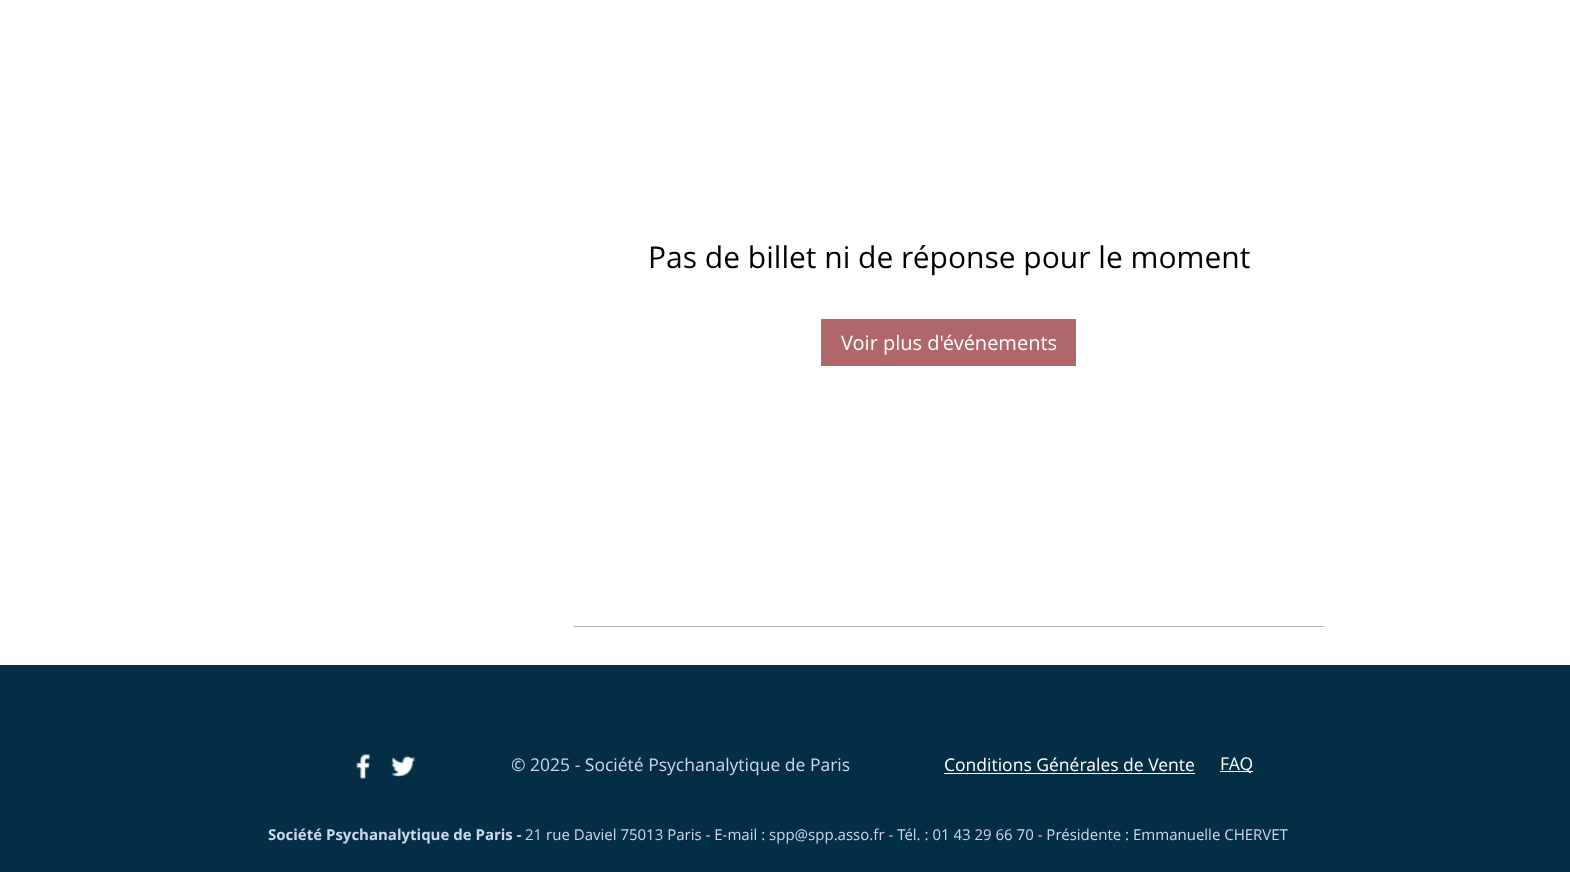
(async () => {
    const canvas = document.querySelector("canvas");
    canvas.width = 1570;
    canvas.height = 872;
    const context = canvas.getContext("2d");
    context.miterLimit = 4;
    context.fontKerning = "normal";
    function write(s, x, y, font, color) {
        context.font = font;
        context.fillStyle = color;
        context.fillText(s, x, y);
    }
    function block(x, y, w, h, color) {
        context.fillStyle = color;
        context.fillRect(x, y, w, h);
    }
    async function photo(src, x, y, w, h) {
        const img = new Image();
        img.src = src;
        await img.decode();
        context.drawImage(img, x, y, w, h);
    }

    block(0, 0, 1570, 872, "rgb(255, 255, 255)");
    write("Pas de billet ni de réponse pour le moment", 648, 268, "30px Open Sans", "rgb(0, 0, 0)");
    block(821, 319, 255, 47, "rgb(176, 103, 105)");
    write("Voir plus d'événements", 841, 350, "20px Open Sans", "rgb(255, 255, 255)");
    block(574, 626, 750, 1, "rgb(179, 179, 179)");
    block(0, 665, 1570, 207, "rgb(3, 46, 70)");
    await photo("media/1.png", 356, 754, 15, 25);
    await photo("media/2.png", 391, 755, 25, 22);
    write("© 2025 - Société Psychanalytique de Paris", 511, 771, "17.5px Open Sans", "rgb(207, 214, 232)");
    write("Conditions Générales de Vente", 944, 771, "17.5px Open Sans", "rgb(255, 255, 255)");
    block(944, 773, 251, 1, "rgb(255, 255, 255)");
    block(1220, 771, 33, 1, "rgb(255, 255, 255)");
    write("FAQ", 1220, 770, "17.5px Open Sans", "rgb(255, 255, 255)");
    write("Société Psychanalytique de Paris -", 268, 840, "bold 15px Open Sans", "rgb(207, 214, 232)");
    write("21 rue Daviel 75013 Paris - E-mail : spp@spp.asso.fr - Tél. : 01 43 29 66 70 - Présidente : Emmanuelle CHERVET", 525, 840, "15px Open Sans", "rgb(207, 214, 232)");
})();
